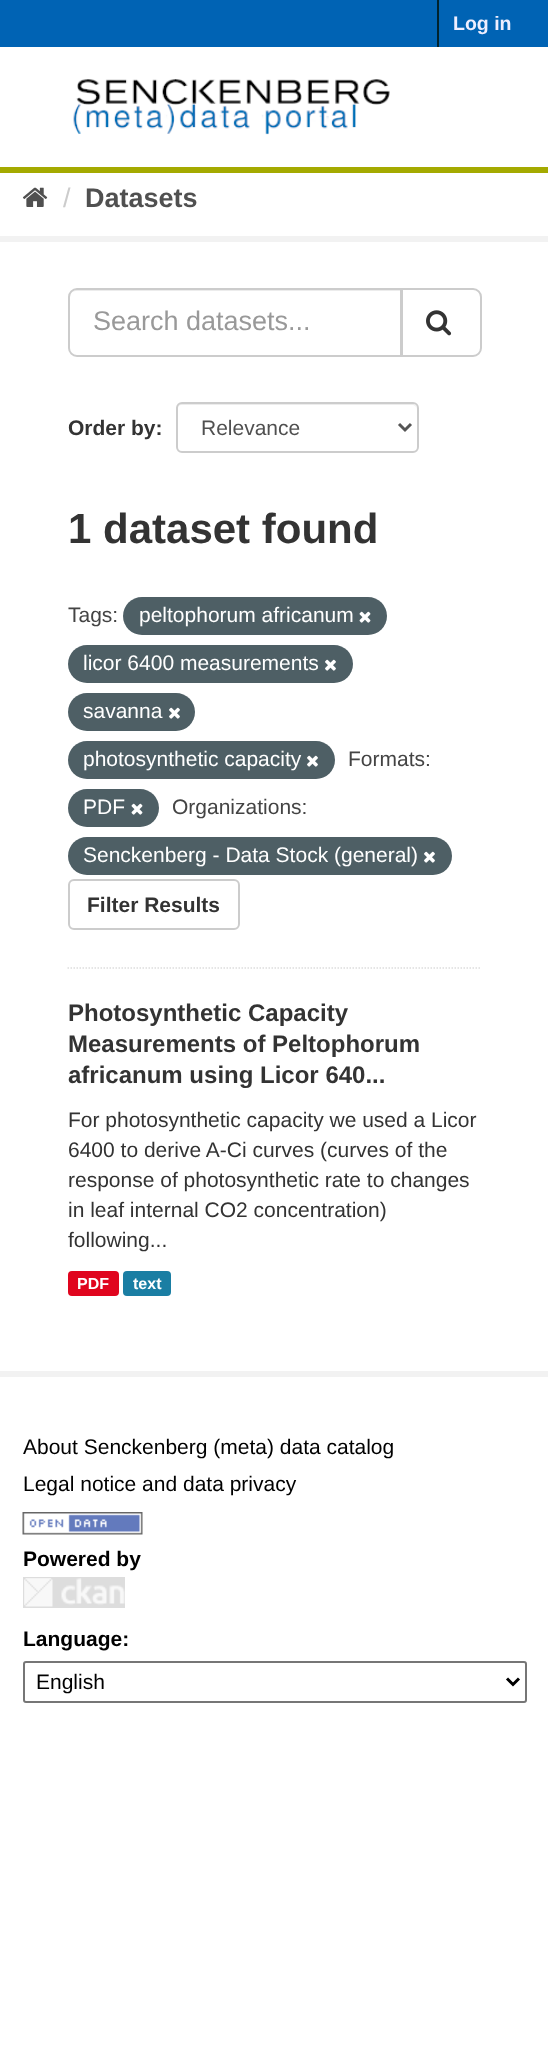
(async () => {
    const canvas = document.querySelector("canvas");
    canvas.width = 548;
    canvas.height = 2045;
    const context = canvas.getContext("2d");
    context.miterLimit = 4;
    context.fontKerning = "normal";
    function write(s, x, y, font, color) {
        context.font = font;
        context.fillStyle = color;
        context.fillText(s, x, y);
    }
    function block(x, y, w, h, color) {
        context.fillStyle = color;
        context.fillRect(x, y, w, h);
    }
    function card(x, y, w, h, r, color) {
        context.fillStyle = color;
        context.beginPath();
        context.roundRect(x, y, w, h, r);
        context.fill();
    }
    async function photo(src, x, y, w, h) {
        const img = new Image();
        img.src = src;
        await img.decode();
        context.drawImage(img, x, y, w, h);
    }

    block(0, 0, 548, 2045, "rgb(255, 255, 255)");
    block(0, 0, 548, 47, "rgb(0, 99, 180)");
    block(437, 0, 2, 47, "rgb(0, 35, 46)");
    write("Log in", 453, 30, "bold 19.5px Liberation Sans", "rgb(238, 238, 255)");
    block(0, 167, 548, 6, "rgb(164, 170, 0)");
    await photo("media/1.png", 73, 79, 317, 56);
    await photo("media/2.png", 22, 187, 26, 20);
    write("/", 63, 207, "27px Liberation Sans", "rgb(204, 204, 204)");
    write("Datasets", 85, 207, "bold 27px Liberation Sans", "rgb(80, 80, 80)");
    context.strokeStyle = "rgb(242, 242, 242)";
    context.lineWidth = 6;
    context.strokeRect(-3, 239, 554, 1135);
    context.beginPath();
    context.moveTo(67.5, 968);
    context.lineTo(481.5, 968);
    context.strokeStyle = "rgb(221, 221, 221)";
    context.lineWidth = 1.5;
    context.setLineDash([1.5, 1.5]);
    context.stroke();
    context.fillStyle = "rgb(236, 236, 236)";
    context.beginPath();
    context.moveTo(76, 291);
    context.lineTo(400, 291);
    context.lineTo(400, 356);
    context.lineTo(401, 356);
    context.lineTo(401, 290);
    context.lineTo(77, 290);
    context.bezierCurveTo(73, 290, 69, 294, 69, 298);
    context.bezierCurveTo(69, 294, 72, 291, 76, 291);
    context.closePath();
    context.fill();
    context.beginPath();
    context.roundRect(69, 289, 332, 67, [8, 0, 0, 8]);
    context.strokeStyle = "rgb(204, 204, 204)";
    context.lineWidth = 2;
    context.setLineDash([]);
    context.stroke();
    write("Search datasets...", 93, 330, "27px Liberation Sans", "rgb(153, 153, 153)");
    context.fillStyle = "rgb(255, 255, 255)";
    context.beginPath();
    context.roundRect(402, 289, 79, 67, [0, 8, 8, 0]);
    context.fill();
    context.stroke();
    await photo("media/3.png", 426, 310, 26, 26);
    write("Order by:", 68, 435, "bold 21px Liberation Sans", "rgb(51, 51, 51)");
    context.fillStyle = "rgb(236, 236, 236)";
    context.beginPath();
    context.moveTo(182, 405);
    context.lineTo(412, 405);
    context.bezierCurveTo(415, 405, 417, 407, 417, 410);
    context.lineTo(417, 409);
    context.bezierCurveTo(417, 406, 415, 404, 412, 404);
    context.lineTo(182, 404);
    context.bezierCurveTo(179, 404, 177, 406, 177, 409);
    context.lineTo(177, 410);
    context.bezierCurveTo(177, 407, 179, 405, 182, 405);
    context.closePath();
    context.fill();
    context.beginPath();
    context.roundRect(177, 403, 241, 49, 5);
    context.stroke();
    context.beginPath();
    context.moveTo(399, 424);
    context.lineTo(405, 430);
    context.lineTo(411, 424);
    context.strokeStyle = "rgb(85, 85, 85)";
    context.lineWidth = 3;
    context.stroke();
    write("Relevance", 201, 435, "21px Liberation Sans", "rgb(80, 80, 80)");
    write("1 dataset found", 68, 543, "bold 42px Liberation Sans", "rgb(51, 51, 51)");
    write("Tags:", 68, 622, "21px Liberation Sans", "rgb(68, 68, 68)");
    card(123, 597, 264, 38, 19, "rgb(78, 95, 101)");
    write("peltophorum africanum", 139, 622, "21px Liberation Sans", "rgb(255, 255, 255)");
    await photo("media/4.png", 359, 611, 12, 12);
    card(68, 645, 285, 38, 19, "rgb(78, 95, 101)");
    write("licor 6400 measurements", 83, 670, "21px Liberation Sans", "rgb(255, 255, 255)");
    await photo("media/5.png", 325, 659, 11, 12);
    card(68, 693, 127, 38, 19, "rgb(78, 95, 101)");
    write("savanna", 83, 718, "21px Liberation Sans", "rgb(255, 255, 255)");
    await photo("media/5.png", 169, 707, 11, 12);
    card(68, 741, 267, 38, 19, "rgb(78, 95, 101)");
    write("photosynthetic capacity", 83, 766, "21px Liberation Sans", "rgb(255, 255, 255)");
    await photo("media/5.png", 307, 755, 11, 12);
    write("Formats:", 348, 766, "21px Liberation Sans", "rgb(68, 68, 68)");
    card(68, 789, 91, 38, 19, "rgb(78, 95, 101)");
    write("PDF", 83, 814, "21px Liberation Sans", "rgb(255, 255, 255)");
    await photo("media/4.png", 131, 803, 12, 12);
    write("Organizations:", 172, 814, "21px Liberation Sans", "rgb(68, 68, 68)");
    card(68, 837, 384, 38, 19, "rgb(78, 95, 101)");
    write("Senckenberg - Data Stock (general)", 83, 862, "21px Liberation Sans", "rgb(255, 255, 255)");
    await photo("media/5.png", 424, 851, 11, 12);
    context.beginPath();
    context.roundRect(69, 880, 170, 49, 5);
    context.strokeStyle = "rgb(204, 204, 204)";
    context.lineWidth = 2;
    context.stroke();
    write("Filter Results", 87, 912, "bold 21px Liberation Sans", "rgb(51, 51, 51)");
    write("Photosynthetic Capacity", 68, 1021, "bold 24px Liberation Sans", "rgb(51, 51, 51)");
    write("Measurements of Peltophorum", 68, 1052, "bold 24px Liberation Sans", "rgb(51, 51, 51)");
    write("africanum using Licor 640...", 68, 1083, "bold 24px Liberation Sans", "rgb(51, 51, 51)");
    write("For photosynthetic capacity we used a Licor", 68, 1127, "21px Liberation Sans", "rgb(51, 51, 51)");
    write("6400 to derive A-Ci curves (curves of the", 68, 1157, "21px Liberation Sans", "rgb(51, 51, 51)");
    write("response of photosynthetic rate to changes", 68, 1187, "21px Liberation Sans", "rgb(51, 51, 51)");
    write("in leaf internal CO2 concentration)", 68, 1217, "21px Liberation Sans", "rgb(51, 51, 51)");
    write("following...", 68, 1247, "21px Liberation Sans", "rgb(51, 51, 51)");
    card(68, 1271, 51, 25, 4, "rgb(224, 5, 30)");
    write("PDF", 77, 1289, "bold 16px Liberation Sans", "rgb(255, 255, 255)");
    card(123, 1271, 48, 25, 4, "rgb(26, 126, 163)");
    write("text", 133, 1289, "bold 16px Liberation Sans", "rgb(255, 255, 255)");
    write("About Senckenberg (meta) data catalog", 23, 1454, "21px Liberation Sans", "rgb(0, 0, 0)");
    write("Legal notice and data privacy", 23, 1491, "21px Liberation Sans", "rgb(0, 0, 0)");
    await photo("media/6.png", 22, 1512, 121, 23);
    write("Powered by", 23, 1566, "bold 21px Liberation Sans", "rgb(0, 0, 0)");
    block(23, 1577, 102, 31, "rgb(221, 221, 221)");
    await photo("media/7.png", 24, 1578, 101, 29);
    write("Language:", 23, 1646, "bold 21px Liberation Sans", "rgb(0, 0, 0)");
    context.beginPath();
    context.roundRect(24, 1662, 502, 40, 2);
    context.strokeStyle = "rgb(118, 118, 118)";
    context.stroke();
    context.beginPath();
    context.moveTo(507, 1678.5);
    context.lineTo(513, 1684.5);
    context.lineTo(519, 1678.5);
    context.strokeStyle = "rgb(0, 0, 0)";
    context.lineWidth = 3;
    context.stroke();
    write("English", 36, 1689, "21px Liberation Sans", "rgb(0, 0, 0)");
})();
